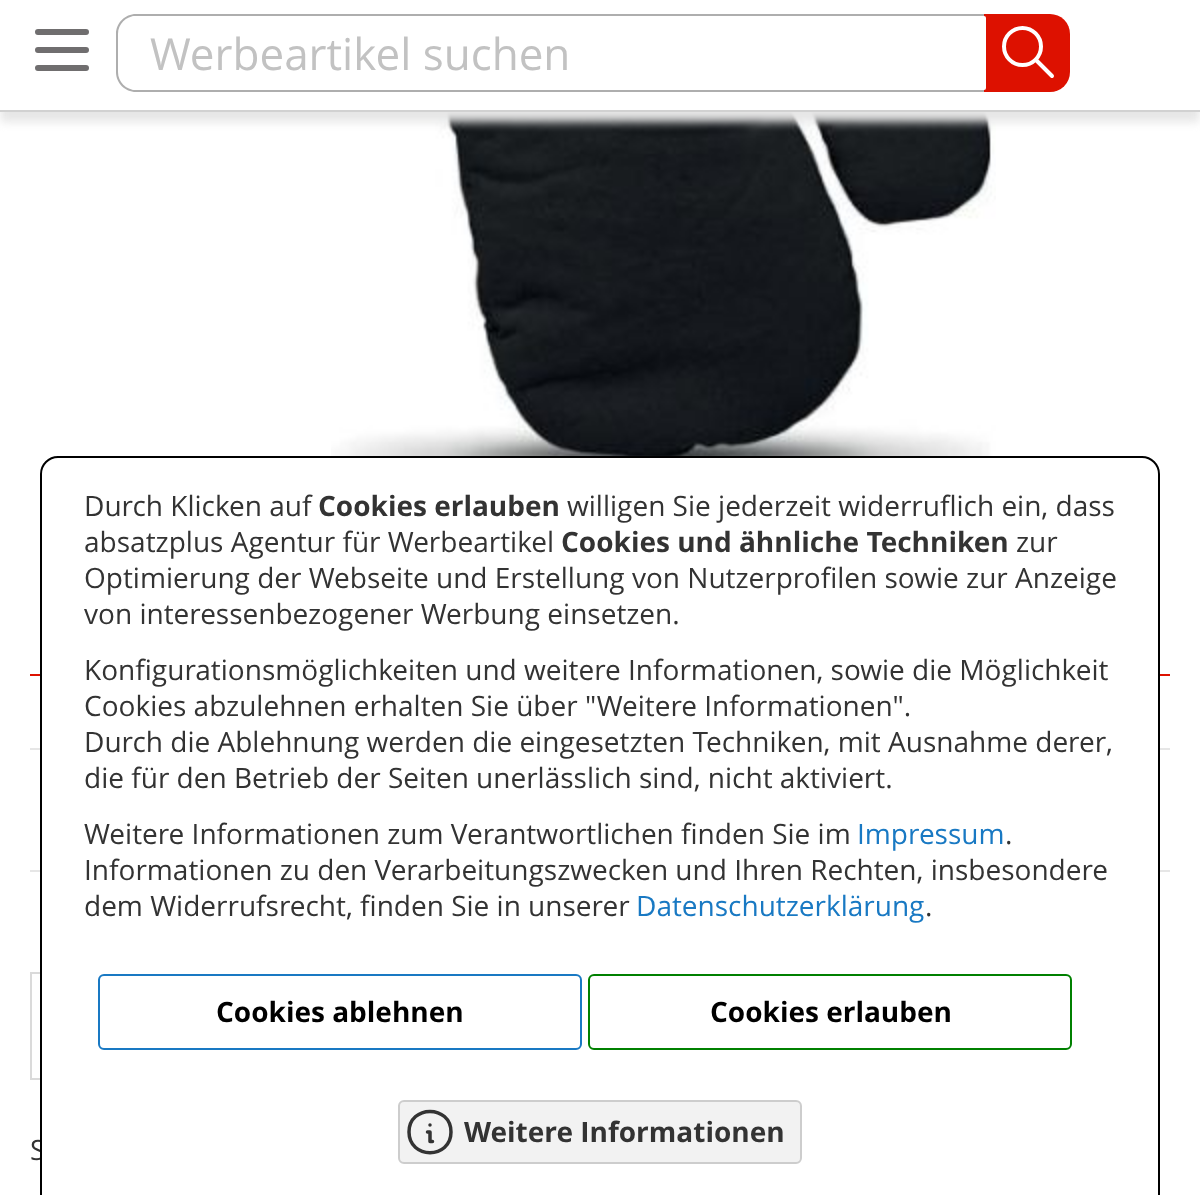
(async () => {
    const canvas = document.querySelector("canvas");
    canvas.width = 1200;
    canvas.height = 1195;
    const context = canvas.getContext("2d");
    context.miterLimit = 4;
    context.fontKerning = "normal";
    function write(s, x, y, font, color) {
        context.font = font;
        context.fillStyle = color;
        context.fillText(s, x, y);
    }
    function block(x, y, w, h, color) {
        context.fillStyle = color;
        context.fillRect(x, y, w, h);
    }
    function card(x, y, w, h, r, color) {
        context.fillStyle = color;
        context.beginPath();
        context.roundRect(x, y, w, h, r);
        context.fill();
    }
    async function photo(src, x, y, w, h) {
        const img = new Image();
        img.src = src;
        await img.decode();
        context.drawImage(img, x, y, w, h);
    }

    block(0, 0, 1200, 1195, "rgb(255, 255, 255)");
    await photo("media/1.png", 331, 112, 665, 344);
    context.fillStyle = "rgb(230, 230, 230)";
    context.filter = "blur(5px)";
    context.beginPath();
    context.rect(0, -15, 1200, 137);
    context.fill();
    context.filter = "none";
    block(0, 0, 1200, 110, "rgb(255, 255, 255)");
    block(0, 110, 1200, 2, "rgb(209, 209, 209)");
    context.beginPath();
    context.moveTo(38, 32);
    context.lineTo(86, 32);
    context.moveTo(38, 50);
    context.lineTo(86, 50);
    context.moveTo(38, 68);
    context.lineTo(86, 68);
    context.strokeStyle = "rgb(112, 110, 111)";
    context.lineWidth = 6;
    context.lineCap = "round";
    context.lineJoin = "round";
    context.stroke();
    context.fillStyle = "rgb(174, 174, 174)";
    context.beginPath();
    context.moveTo(136, 14);
    context.lineTo(984, 14);
    context.lineTo(984, 92);
    context.lineTo(136, 92);
    context.bezierCurveTo(125, 92, 116, 83, 116, 72);
    context.lineTo(116, 34);
    context.bezierCurveTo(116, 23, 125, 14, 136, 14);
    context.closePath();
    context.moveTo(136, 16);
    context.lineTo(984, 16);
    context.lineTo(984, 90);
    context.lineTo(136, 90);
    context.bezierCurveTo(126, 90, 118, 82, 118, 72);
    context.lineTo(118, 34);
    context.bezierCurveTo(118, 24, 126, 16, 136, 16);
    context.closePath();
    context.fill("evenodd");
    context.fillStyle = "rgb(221, 17, 0)";
    context.beginPath();
    context.roundRect(984, 14, 86, 78, [0, 20, 20, 0]);
    context.fill();
    card(132, 16, 854, 74, 2, "rgb(255, 255, 255)");
    write("Werbeartikel suchen", 150, 70, "44px Open Sans", "rgb(194, 194, 194)");
    context.beginPath();
    context.arc(1022.5, 46.5, 18.5, 0, Math.PI * 2);
    context.strokeStyle = "rgb(255, 255, 255)";
    context.lineWidth = 4;
    context.stroke();
    context.beginPath();
    context.moveTo(1052, 76);
    context.lineTo(1036, 60);
    context.stroke();
    block(30, 674, 1140, 2, "rgb(221, 17, 0)");
    block(30, 748, 1140, 2, "rgb(230, 230, 230)");
    block(30, 870, 1140, 2, "rgb(230, 230, 230)");
    context.strokeStyle = "rgb(218, 218, 218)";
    context.lineWidth = 2;
    context.lineJoin = "miter";
    context.strokeRect(31, 973, 110, 106);
    write("S", 30, 1160, "28px Open Sans", "rgb(51, 51, 51)");
    context.fillStyle = "rgb(255, 255, 255)";
    context.beginPath();
    context.roundRect(41, 457, 1118, 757, 17);
    context.fill();
    context.strokeStyle = "rgb(0, 0, 0)";
    context.stroke();
    write("Durch Klicken auf", 84, 516, "28px Open Sans", "rgb(51, 51, 51)");
    write("Cookies erlauben", 318, 516, "bold 28px Open Sans", "rgb(51, 51, 51)");
    write("willigen Sie jederzeit widerruflich ein, dass", 567, 516, "28px Open Sans", "rgb(51, 51, 51)");
    write("absatzplus Agentur für Werbeartikel", 84, 552, "28px Open Sans", "rgb(51, 51, 51)");
    write("Cookies und ähnliche Techniken", 561, 552, "bold 28px Open Sans", "rgb(51, 51, 51)");
    write("zur", 1016, 552, "28px Open Sans", "rgb(51, 51, 51)");
    write("Optimierung der Webseite und Erstellung von Nutzerprofilen sowie zur Anzeige", 84, 588, "28px Open Sans", "rgb(51, 51, 51)");
    write("von interessenbezogener Werbung einsetzen.", 84, 624, "28px Open Sans", "rgb(51, 51, 51)");
    write("Konfigurationsmöglichkeiten und weitere Informationen, sowie die Möglichkeit", 84, 680, "28px Open Sans", "rgb(51, 51, 51)");
    write("Cookies abzulehnen erhalten Sie über \"Weitere Informationen\".", 84, 716, "28px Open Sans", "rgb(51, 51, 51)");
    write("Durch die Ablehnung werden die eingesetzten Techniken, mit Ausnahme derer,", 84, 752, "28px Open Sans", "rgb(51, 51, 51)");
    write("die für den Betrieb der Seiten unerlässlich sind, nicht aktiviert.", 84, 788, "28px Open Sans", "rgb(51, 51, 51)");
    write("Weitere Informationen zum Verantwortlichen finden Sie im", 84, 844, "28px Open Sans", "rgb(51, 51, 51)");
    write("Impressum", 857, 844, "28px Open Sans", "rgb(25, 121, 195)");
    write(".", 1005, 844, "28px Open Sans", "rgb(51, 51, 51)");
    write("Informationen zu den Verarbeitungszwecken und Ihren Rechten, insbesondere", 84, 880, "28px Open Sans", "rgb(51, 51, 51)");
    write("dem Widerrufsrecht, finden Sie in unserer", 84, 916, "28px Open Sans", "rgb(51, 51, 51)");
    write("Datenschutzerklärung", 636, 916, "28px Open Sans", "rgb(25, 121, 195)");
    write(".", 925, 916, "28px Open Sans", "rgb(51, 51, 51)");
    context.beginPath();
    context.roundRect(99, 975, 482, 74, 5);
    context.strokeStyle = "rgb(25, 121, 195)";
    context.stroke();
    write("Cookies ablehnen", 216, 1022, "bold 28px Open Sans", "rgb(0, 0, 0)");
    context.beginPath();
    context.roundRect(589, 975, 482, 74, 5);
    context.strokeStyle = "rgb(0, 128, 0)";
    context.stroke();
    write("Cookies erlauben", 710, 1022, "bold 28px Open Sans", "rgb(0, 0, 0)");
    context.fillStyle = "rgb(242, 242, 242)";
    context.beginPath();
    context.roundRect(399, 1101, 402, 62, 5);
    context.fill();
    context.strokeStyle = "rgb(205, 205, 205)";
    context.stroke();
    context.beginPath();
    context.moveTo(409, 1132);
    context.bezierCurveTo(409, 1159.5, 451, 1159.5, 451, 1132);
    context.bezierCurveTo(451, 1104.5, 409, 1104.5, 409, 1132);
    context.moveTo(430, 1125);
    context.lineTo(430, 1125);
    context.moveTo(427.5, 1132);
    context.lineTo(430, 1132);
    context.lineTo(430, 1141.5);
    context.lineTo(432.5, 1141.5);
    context.strokeStyle = "rgb(51, 51, 51)";
    context.lineWidth = 3.5;
    context.lineJoin = "round";
    context.stroke();
    write("Weitere Informationen", 464, 1142, "bold 28px Open Sans", "rgb(51, 51, 51)");
})();
